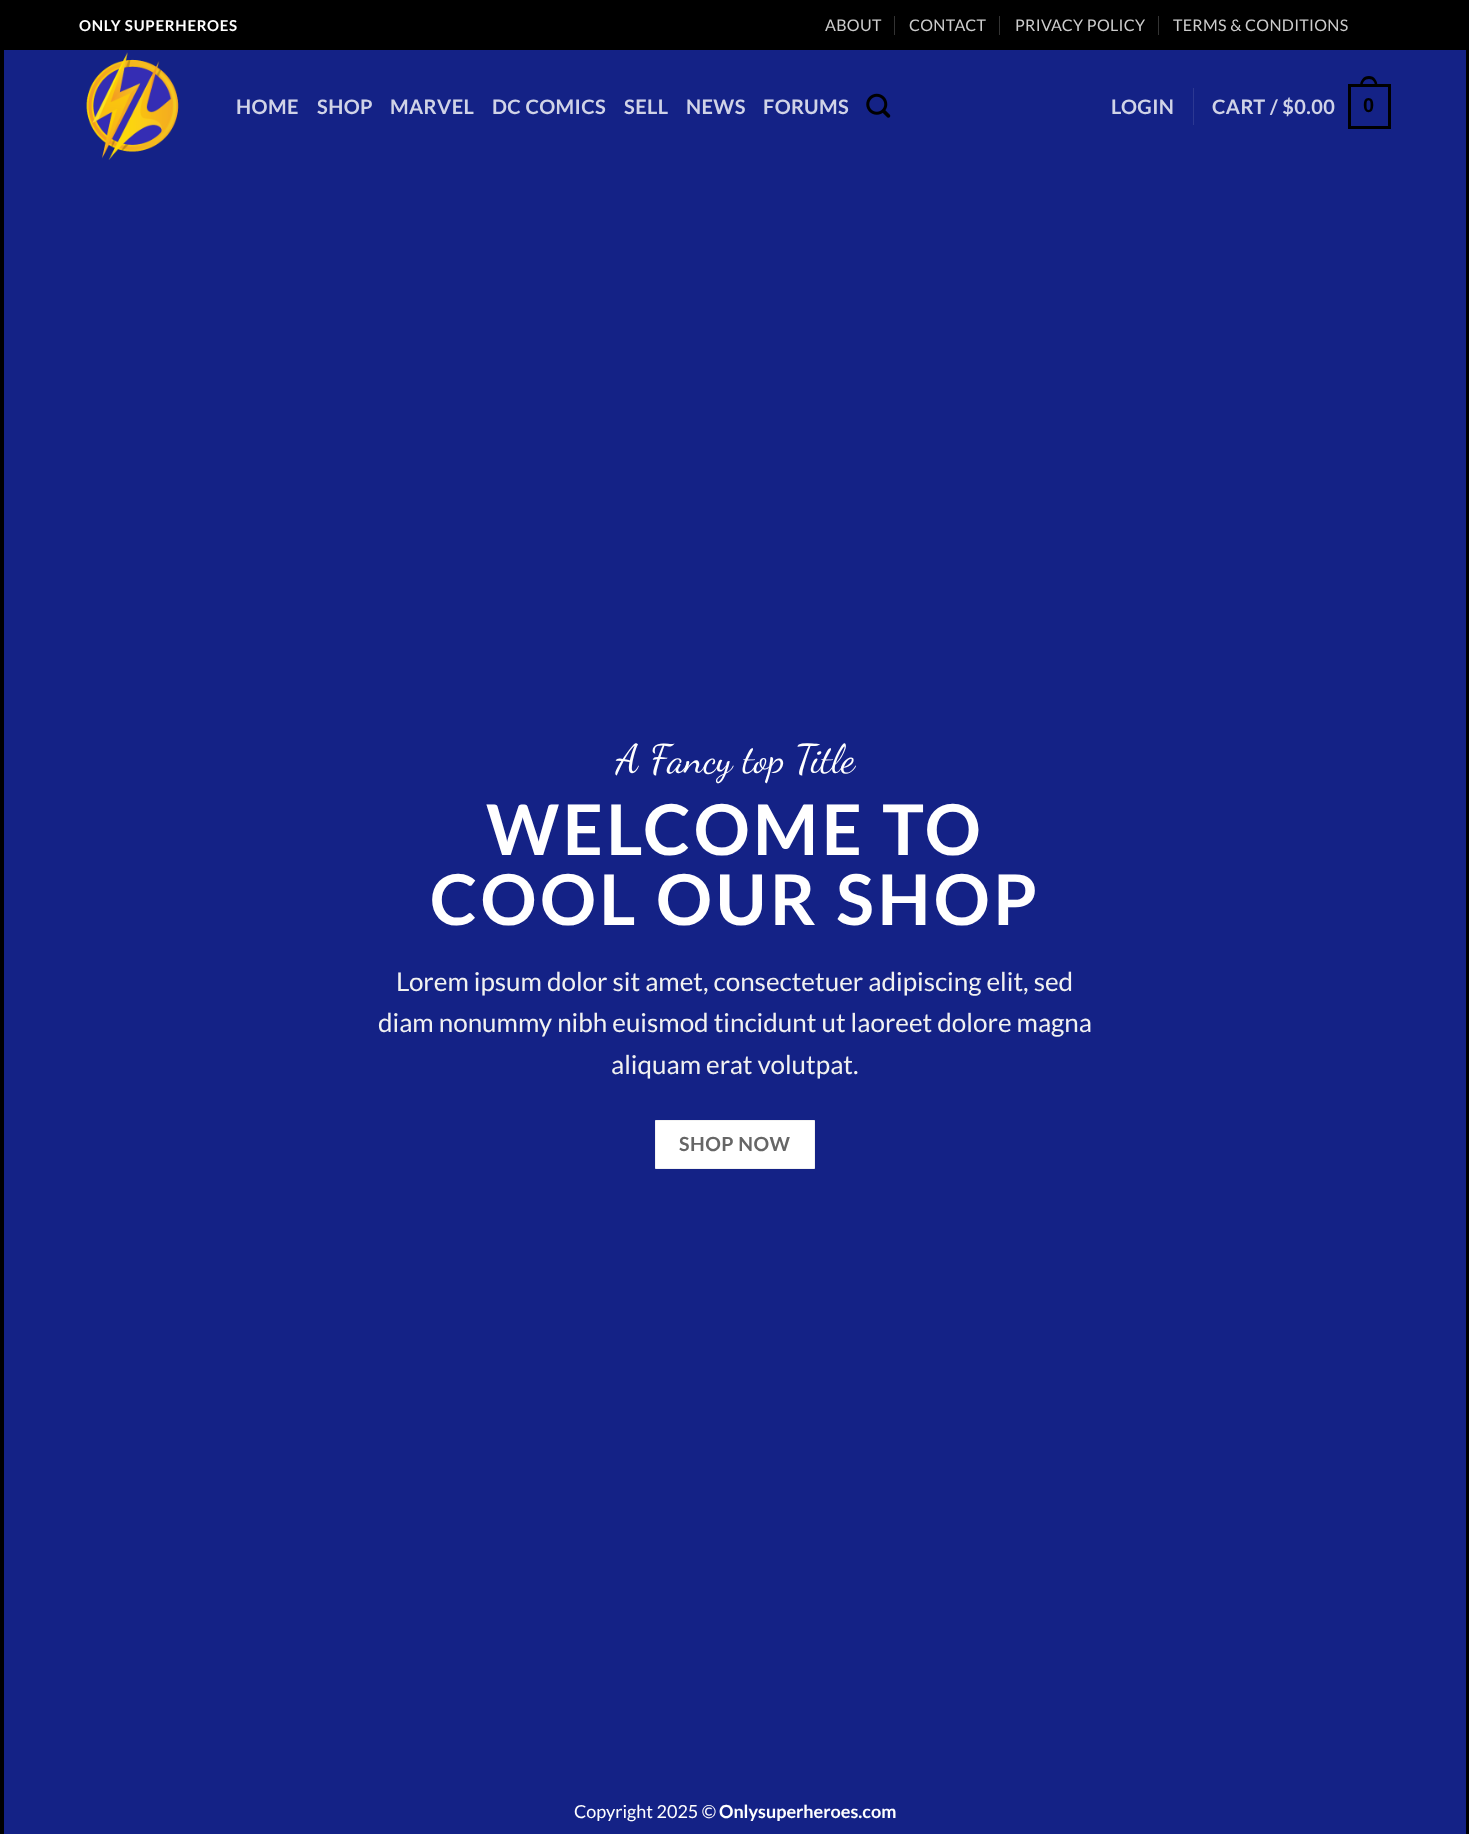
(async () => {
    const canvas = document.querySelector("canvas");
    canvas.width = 1469;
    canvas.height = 1834;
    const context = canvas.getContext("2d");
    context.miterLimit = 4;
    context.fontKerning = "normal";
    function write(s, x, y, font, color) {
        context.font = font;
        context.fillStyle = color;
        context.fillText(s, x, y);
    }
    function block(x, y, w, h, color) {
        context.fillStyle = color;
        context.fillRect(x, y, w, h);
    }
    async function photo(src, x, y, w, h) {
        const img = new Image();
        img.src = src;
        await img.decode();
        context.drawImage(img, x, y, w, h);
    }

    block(0, 0, 1469, 1834, "rgb(0, 0, 0)");
    context.letterSpacing = "0.75px";
    write("ONLY SUPERHEROES", 79, 31, "bold 15px Lato", "rgb(255, 255, 255)");
    context.letterSpacing = "0.3px";
    write("ABOUT", 825, 31, "16px Lato", "rgb(204, 204, 204)");
    block(894, 16, 1, 19, "rgb(51, 51, 51)");
    write("CONTACT", 909, 31, "16px Lato", "rgb(204, 204, 204)");
    block(999, 16, 1, 19, "rgb(51, 51, 51)");
    write("PRIVACY POLICY", 1015, 31, "16px Lato", "rgb(204, 204, 204)");
    block(1158, 16, 1, 19, "rgb(51, 51, 51)");
    write("TERMS & CONDITIONS", 1173, 31, "16px Lato", "rgb(204, 204, 204)");
    block(4, 50, 1462, 1784, "rgb(20, 34, 134)");
    await photo("media/1.png", 86, 52, 93, 108);
    context.letterSpacing = "0.4px";
    write("HOME", 236, 114, "bold 20px Lato", "rgb(208, 211, 231)");
    write("SHOP", 317, 114, "bold 20px Lato", "rgb(208, 211, 231)");
    write("MARVEL", 390, 114, "bold 20px Lato", "rgb(208, 211, 231)");
    write("DC COMICS", 492, 114, "bold 20px Lato", "rgb(208, 211, 231)");
    write("SELL", 624, 114, "bold 20px Lato", "rgb(208, 211, 231)");
    write("NEWS", 686, 114, "bold 20px Lato", "rgb(208, 211, 231)");
    write("FORUMS", 763, 114, "bold 20px Lato", "rgb(208, 211, 231)");
    await photo("media/2.png", 866, 93, 25, 25);
    write("LOGIN", 1111, 114, "bold 20px Lato", "rgb(208, 211, 231)");
    block(1193, 88, 1, 37, "rgb(44, 56, 146)");
    write("CART / $0.00", 1212, 114, "bold 20px Lato", "rgb(208, 211, 231)");
    context.strokeStyle = "rgb(0, 0, 0)";
    context.lineWidth = 3;
    context.strokeRect(1349.5, 85.5, 40, 42);
    context.fillStyle = "rgb(0, 0, 0)";
    context.beginPath();
    context.moveTo(1369, 76);
    context.bezierCurveTo(1374.5, 76, 1377.5, 81, 1377.5, 86);
    context.lineTo(1360, 86);
    context.bezierCurveTo(1360, 81, 1363, 76, 1369, 76);
    context.closePath();
    context.moveTo(1369, 79);
    context.bezierCurveTo(1373, 79, 1375, 82.5, 1375, 86);
    context.lineTo(1362.5, 86);
    context.bezierCurveTo(1362.5, 82.5, 1364.5, 79, 1369, 79);
    context.closePath();
    context.fill("evenodd");
    write("0", 1363, 112, "bold 20px Liberation Sans", "rgb(0, 0, 0)");
    context.letterSpacing = "0px";
    write("A Fancy top Title", 616, 772, "40px Dancing Script", "rgb(255, 255, 255)");
    context.letterSpacing = "3.5px";
    write("WELCOME TO", 486, 855, "bold 70px Lato", "rgb(255, 255, 255)");
    write("COOL OUR SHOP", 430, 925, "bold 70px Lato", "rgb(255, 255, 255)");
    context.letterSpacing = "0px";
    write("Lorem ipsum dolor sit amet, consectetuer adipiscing elit, sed", 396, 991, "26px Lato", "rgb(241, 241, 241)");
    write("diam nonummy nibh euismod tincidunt ut laoreet dolore magna", 378, 1032, "26px Lato", "rgb(241, 241, 241)");
    write("aliquam erat volutpat.", 611, 1074, "26px Lato", "rgb(241, 241, 241)");
    context.fillStyle = "rgb(255, 255, 255)";
    context.beginPath();
    context.rect(655.5, 1120.5, 159, 48);
    context.fill();
    context.strokeStyle = "rgb(242, 242, 242)";
    context.lineWidth = 1;
    context.stroke();
    context.letterSpacing = "0.5px";
    write("SHOP NOW", 679, 1151, "bold 19.5px Lato", "rgb(102, 102, 102)");
    context.letterSpacing = "0px";
    write("Copyright 2025 ©", 574, 1818, "18px Lato", "rgb(255, 255, 255)");
    write("Onlysuperheroes.com", 719, 1818, "bold 18px Lato", "rgb(255, 255, 255)");
})();
